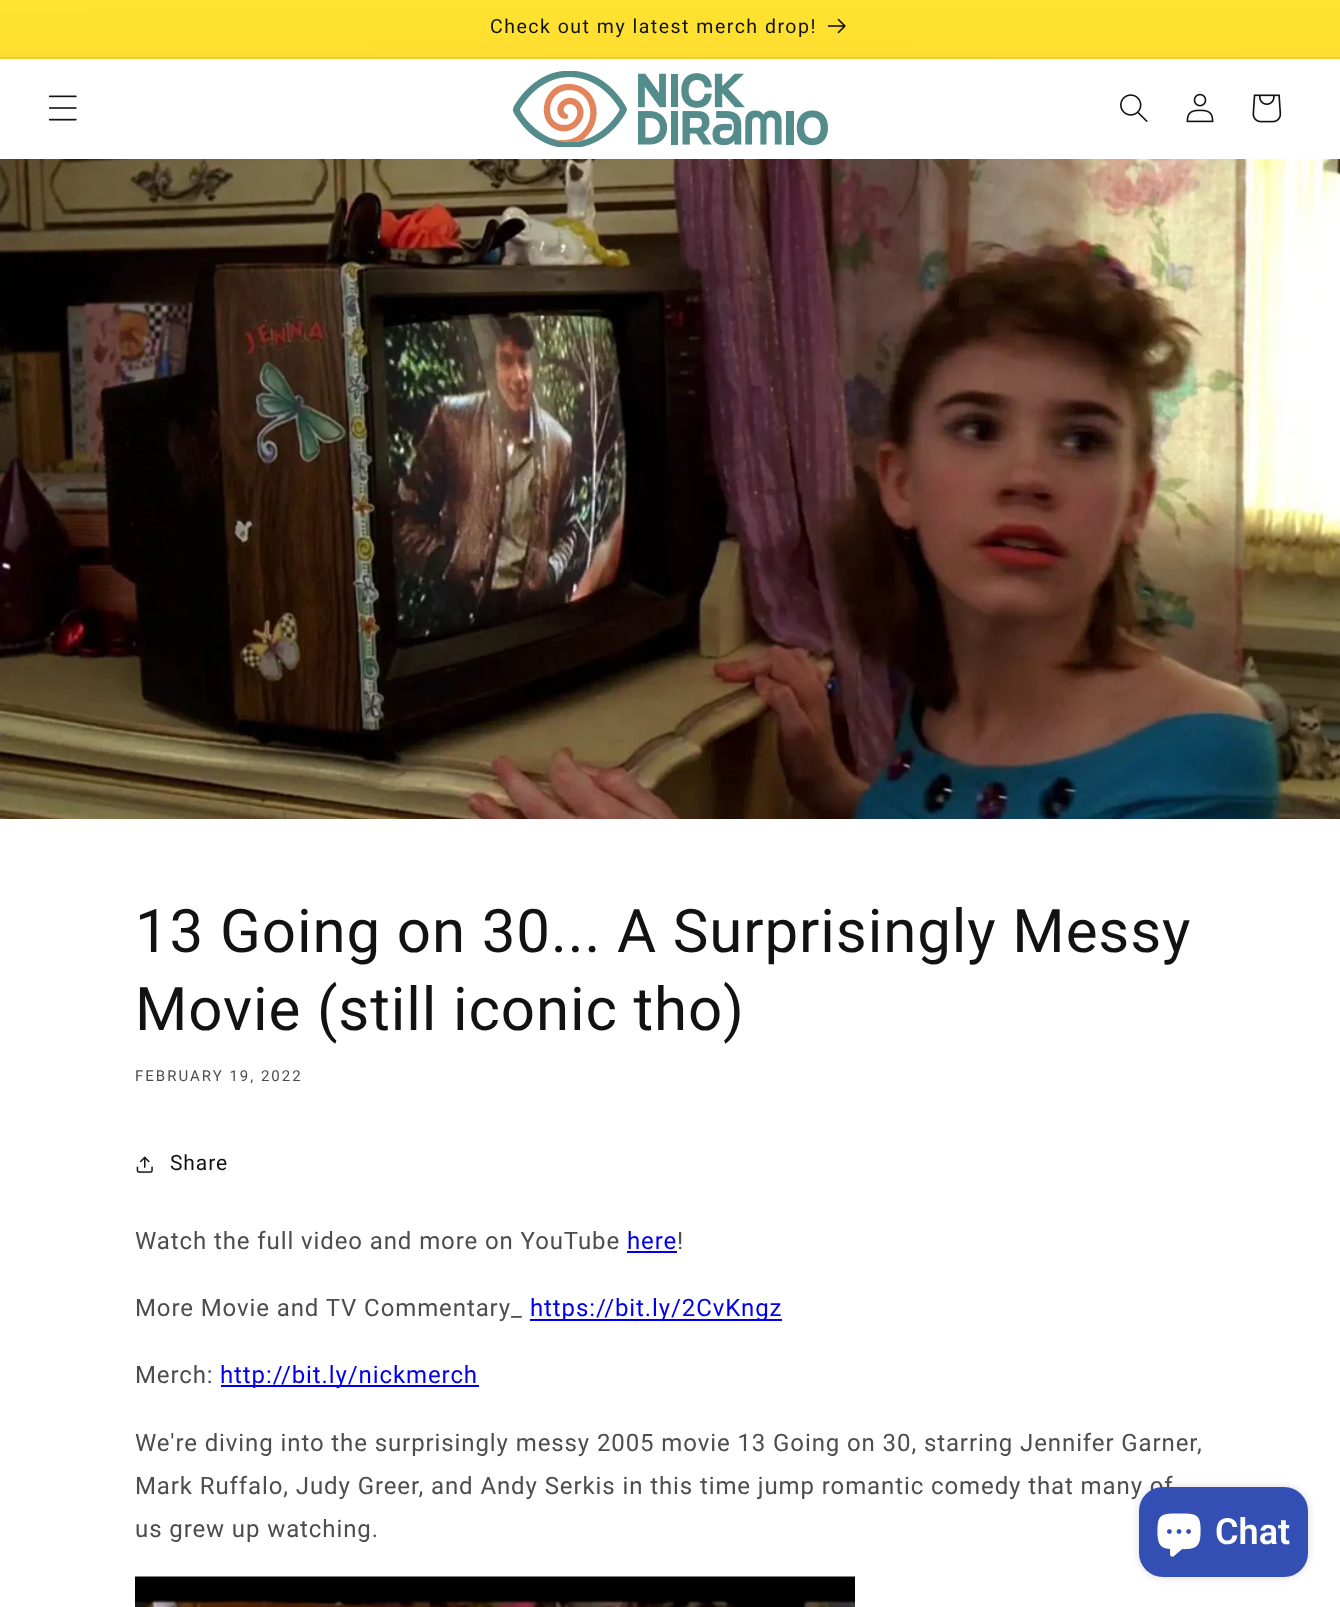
(async () => {
    const canvas = document.querySelector("canvas");
    canvas.width = 1340;
    canvas.height = 1607;
    const context = canvas.getContext("2d");
    context.miterLimit = 4;
    context.fontKerning = "normal";
    function write(s, x, y, font, color) {
        context.font = font;
        context.fillStyle = color;
        context.fillText(s, x, y);
    }
    function block(x, y, w, h, color) {
        context.fillStyle = color;
        context.fillRect(x, y, w, h);
    }
    function card(x, y, w, h, r, color) {
        context.fillStyle = color;
        context.beginPath();
        context.roundRect(x, y, w, h, r);
        context.fill();
    }
    async function photo(src, x, y, w, h) {
        const img = new Image();
        img.src = src;
        await img.decode();
        context.drawImage(img, x, y, w, h);
    }
    let gradient;

    block(0, 0, 1340, 1607, "rgb(255, 255, 255)");
    gradient = context.createLinearGradient(670, 0, 671, 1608);
    gradient.addColorStop(0, "rgb(255, 228, 49)");
    gradient.addColorStop(1, "rgb(249, 32, 32)");
    context.fillStyle = gradient;
    context.fillRect(0, 0, 1340, 57);
    block(0, 57, 1340, 2, "rgb(236, 205, 46)");
    context.letterSpacing = "1.5px";
    write("Check out my latest merch drop!", 490, 33, "19.5px Roboto", "rgb(18, 18, 18)");
    await photo("media/1.png", 828, 18, 18, 16);
    await photo("media/2.png", 48, 95, 29, 26);
    await photo("media/3.png", 513, 71, 315, 76);
    await photo("media/4.png", 1120, 94, 28, 28);
    await photo("media/5.png", 1186, 93, 28, 30);
    await photo("media/6.png", 1252, 94, 30, 29);
    await photo("media/7.png", 0, 159, 1340, 660);
    context.letterSpacing = "0.9px";
    write("13 Going on 30... A Surprisingly Messy", 135, 952, "60px Roboto", "rgb(18, 18, 18)");
    write("Movie (still iconic tho)", 135, 1030, "60px Roboto", "rgb(18, 18, 18)");
    context.letterSpacing = "2px";
    write("FEBRUARY 19, 2022", 135, 1081, "15px Roboto", "rgb(77, 77, 77)");
    await photo("media/8.png", 136, 1156, 17, 17);
    context.letterSpacing = "0.9px";
    write("Share", 170, 1170, "21px Roboto", "rgb(18, 18, 18)");
    write("Watch the full video and more on YouTube", 135, 1249, "24px Roboto", "rgb(77, 77, 77)");
    write("here", 627, 1249, "24px Roboto", "rgb(0, 0, 238)");
    block(627, 1251, 50, 2, "rgb(0, 0, 238)");
    write("!", 677, 1249, "24px Roboto", "rgb(77, 77, 77)");
    write("More Movie and TV Commentary_", 135, 1316, "24px Roboto", "rgb(77, 77, 77)");
    block(530, 1319, 252, 2, "rgb(0, 0, 238)");
    write("https://bit.ly/2CvKngz", 530, 1316, "24px Roboto", "rgb(0, 0, 238)");
    write("Merch:", 135, 1383, "24px Roboto", "rgb(77, 77, 77)");
    block(221, 1385, 258, 2, "rgb(0, 0, 238)");
    write("http://bit.ly/nickmerch", 220, 1383, "24px Roboto", "rgb(0, 0, 238)");
    write("We're diving into the surprisingly messy 2005 movie 13 Going on 30, starring Jennifer Garner,", 135, 1451, "24px Roboto", "rgb(77, 77, 77)");
    write("Mark Ruffalo, Judy Greer, and Andy Serkis in this time jump romantic comedy that many of", 135, 1494, "24px Roboto", "rgb(77, 77, 77)");
    write("us grew up watching.", 135, 1537, "24px Roboto", "rgb(77, 77, 77)");
    await photo("media/9.png", 135, 1576, 720, 31);
    context.fillStyle = "rgba(0, 0, 0, 0.15)";
    context.filter = "blur(4px)";
    context.beginPath();
    context.roundRect(1139, 1487, 169, 90, 24);
    context.fill();
    context.filter = "none";
    card(1139, 1487, 169, 90, 24, "rgb(51, 79, 180)");
    await photo("media/10.png", 1157, 1513, 44, 44);
    context.letterSpacing = "0px";
    write("Chat", 1215, 1544, "600 36px Roboto", "rgb(255, 255, 255)");
})();
